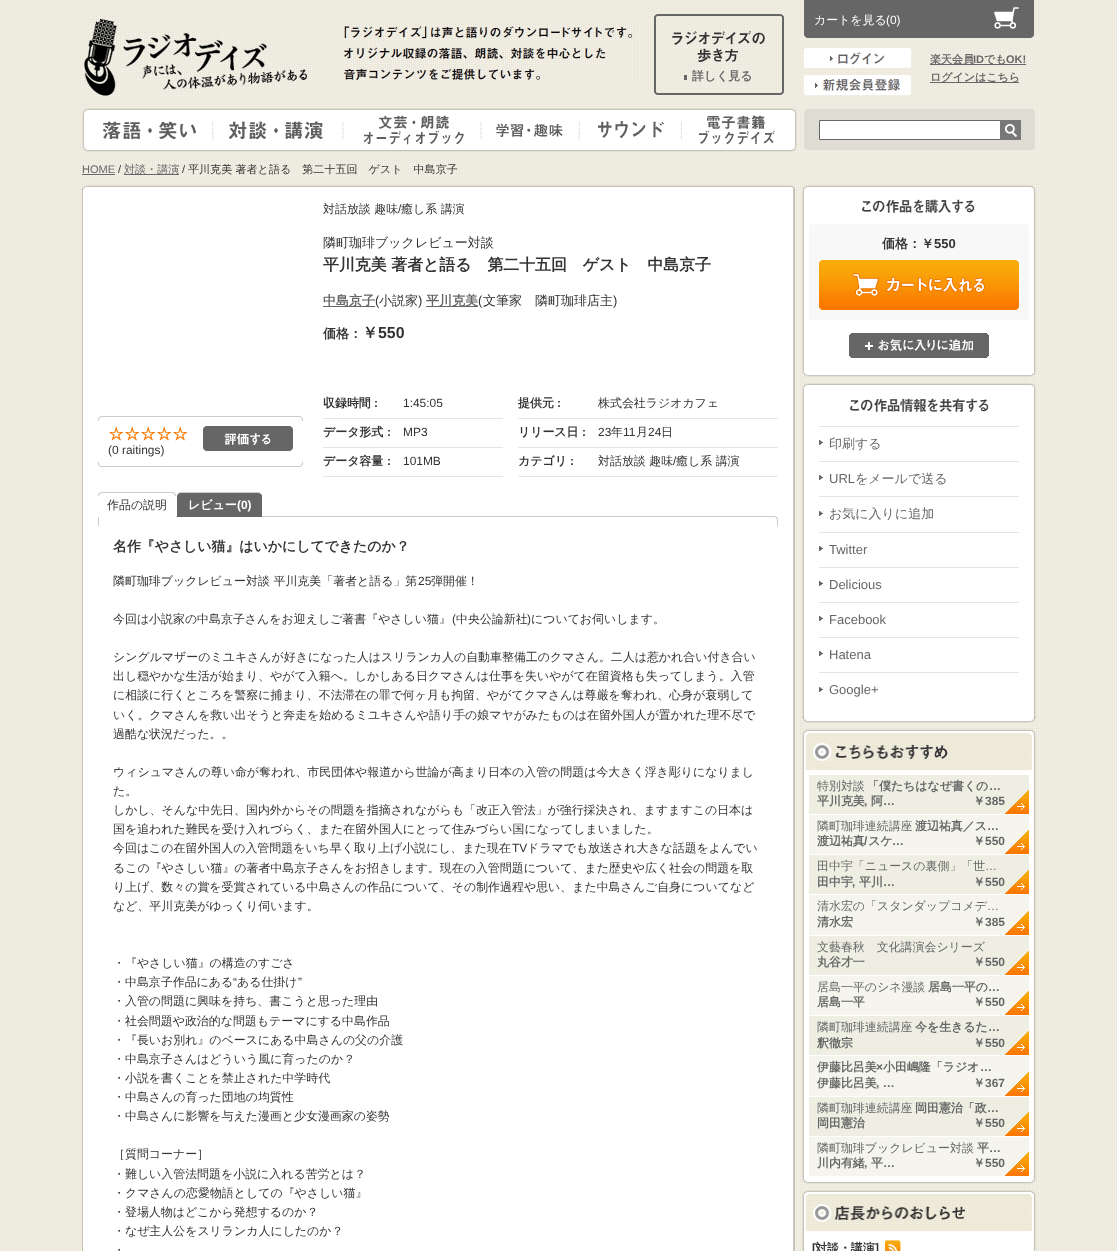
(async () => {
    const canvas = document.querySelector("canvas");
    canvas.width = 1117;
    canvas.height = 1251;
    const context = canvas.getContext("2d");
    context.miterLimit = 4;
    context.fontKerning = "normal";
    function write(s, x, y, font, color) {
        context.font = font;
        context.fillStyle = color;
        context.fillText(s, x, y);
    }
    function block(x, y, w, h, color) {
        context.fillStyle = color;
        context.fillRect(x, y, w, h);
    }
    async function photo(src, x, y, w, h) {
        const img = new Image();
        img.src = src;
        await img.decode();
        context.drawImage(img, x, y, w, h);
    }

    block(0, 0, 1117, 1251, "rgb(255, 255, 255)");
    await photo("media/1.png", 0, 0, 1117, 1251);
    await photo("media/2.png", 84, 19, 223, 77);
    await photo("media/3.png", 344, 24, 290, 59);
    await photo("media/4.png", 654, 91, 130, 4);
    await photo("media/5.png", 654, 14, 130, 54);
    await photo("media/6.png", 654, 68, 130, 23);
    write("詳しく見る", 692, 80, "bold 11.95px WenQuanYi Zen Hei", "rgb(102, 102, 102)");
    block(684, 75, 3, 5, "rgb(102, 102, 102)");
    block(804, 0, 230, 35, "rgb(102, 102, 102)");
    await photo("media/7.png", 804, 35, 230, 3);
    await photo("media/8.png", 994, 7, 25, 22);
    write("カートを見る", 814, 24, "500 11.95px WenQuanYi Zen Hei", "rgb(255, 255, 255)");
    write("(0)", 886, 24, "11.95px Liberation Sans", "rgb(255, 255, 255)");
    await photo("media/9.png", 804, 48, 107, 20);
    await photo("media/10.png", 804, 75, 107, 20);
    block(930, 64, 96, 1, "rgb(102, 102, 102)");
    write("楽天会員", 930, 63, "bold 11px WenQuanYi Zen Hei", "rgb(102, 102, 102)");
    write("ID", 973, 63, "bold 11px Liberation Sans", "rgb(102, 102, 102)");
    write("でも", 984, 63, "bold 11px WenQuanYi Zen Hei", "rgb(102, 102, 102)");
    write("OK!", 1006, 63, "bold 11px Liberation Sans", "rgb(102, 102, 102)");
    block(930, 82, 89, 1, "rgb(102, 102, 102)");
    write("ログインはこちら", 930, 81, "bold 11px WenQuanYi Zen Hei", "rgb(102, 102, 102)");
    await photo("media/11.png", 82, 108, 715, 44);
    await photo("media/12.png", 103, 121, 93, 19);
    await photo("media/13.png", 228, 121, 95, 19);
    await photo("media/14.png", 363, 115, 101, 30);
    await photo("media/15.png", 496, 123, 67, 14);
    await photo("media/16.png", 598, 121, 66, 18);
    await photo("media/17.png", 699, 115, 76, 30);
    await photo("media/18.png", 804, 109, 231, 41);
    context.fillStyle = "rgb(255, 255, 255)";
    context.beginPath();
    context.rect(819.5, 120.5, 181, 19);
    context.fill();
    context.strokeStyle = "rgb(102, 102, 102)";
    context.stroke();
    await photo("media/19.png", 1000, 120, 21, 20);
    write("HOME", 82, 173, "11.05px Liberation Sans", "rgb(102, 102, 102)");
    block(82, 174, 33, 1, "rgb(102, 102, 102)");
    write("/", 118, 173, "11.05px Liberation Sans", "rgb(51, 51, 51)");
    block(124, 174, 55, 1, "rgb(102, 102, 102)");
    write("対談・講演", 124, 173, "500 11.05px WenQuanYi Zen Hei", "rgb(102, 102, 102)");
    write("/", 182, 173, "11.05px Liberation Sans", "rgb(51, 51, 51)");
    context.save();
    context.beginPath();
    context.rect(82, 164, 954, 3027);
    context.clip();
    write("平川克美 著者と語る　第二十五回　ゲスト　中島京子", 188, 173, "500 11.05px WenQuanYi Zen Hei", "rgb(51, 51, 51)");
    context.restore();
    await photo("media/20.png", 82, 185, 713, 5);
    await photo("media/21.png", 82, 189, 713, 1062);
    await photo("media/22.png", 98, 416, 205, 5);
    await photo("media/23.png", 98, 462, 205, 5);
    await photo("media/24.png", 109, 427, 79, 14);
    write("(0 raitings)", 108, 454, "11.95px Liberation Sans", "rgb(51, 51, 51)");
    await photo("media/25.png", 203, 426, 90, 25);
    write("対話放談 趣味", 323, 213, "500 11.95px WenQuanYi Zen Hei", "rgb(51, 51, 51)");
    write("/", 398, 213, "11.95px Liberation Sans", "rgb(51, 51, 51)");
    write("癒し系 講演", 401, 213, "500 11.95px WenQuanYi Zen Hei", "rgb(51, 51, 51)");
    write("隣町珈琲ブックレビュー対談", 323, 247, "500 13px WenQuanYi Zen Hei", "rgb(51, 51, 51)");
    write("平川克美 著者と語る　第二十五回　ゲスト　中島京子", 323, 270, "bold 15.9px WenQuanYi Zen Hei", "rgb(51, 51, 51)");
    block(323, 306, 52, 1, "rgb(102, 102, 102)");
    write("中島京子", 323, 305, "bold 13px WenQuanYi Zen Hei", "rgb(102, 102, 102)");
    write("(", 375, 305, "13px Liberation Sans", "rgb(51, 51, 51)");
    write("小説家", 379, 305, "500 13px WenQuanYi Zen Hei", "rgb(51, 51, 51)");
    write(")", 418, 305, "13px Liberation Sans", "rgb(51, 51, 51)");
    block(426, 306, 52, 1, "rgb(102, 102, 102)");
    write("平川克美", 426, 305, "bold 13px WenQuanYi Zen Hei", "rgb(102, 102, 102)");
    write("(", 478, 305, "13px Liberation Sans", "rgb(51, 51, 51)");
    write("文筆家　隣町珈琲店主", 483, 305, "500 13px WenQuanYi Zen Hei", "rgb(51, 51, 51)");
    write(")", 613, 305, "13px Liberation Sans", "rgb(51, 51, 51)");
    write("価格：", 323, 338, "bold 13px WenQuanYi Zen Hei", "rgb(51, 51, 51)");
    write("￥", 362, 338, "bold 15.9px WenQuanYi Zen Hei", "rgb(51, 51, 51)");
    write("550", 378, 338, "bold 15.9px Liberation Sans", "rgb(51, 51, 51)");
    write("収録時間", 323, 407, "bold 11.95px WenQuanYi Zen Hei", "rgb(51, 51, 51)");
    write(":", 374, 407, "bold 11.95px Liberation Sans", "rgb(51, 51, 51)");
    block(323, 418, 180, 1, "rgb(229, 229, 229)");
    write("1:45:05", 403, 407, "11.95px Liberation Sans", "rgb(51, 51, 51)");
    write("データ形式", 323, 436, "bold 11.95px WenQuanYi Zen Hei", "rgb(51, 51, 51)");
    write(":", 387, 436, "bold 11.95px Liberation Sans", "rgb(51, 51, 51)");
    block(323, 447, 180, 1, "rgb(229, 229, 229)");
    write("MP3", 403, 436, "11.95px Liberation Sans", "rgb(51, 51, 51)");
    write("データ容量", 323, 465, "bold 11.95px WenQuanYi Zen Hei", "rgb(51, 51, 51)");
    write(":", 387, 465, "bold 11.95px Liberation Sans", "rgb(51, 51, 51)");
    block(323, 476, 180, 1, "rgb(229, 229, 229)");
    write("101MB", 403, 465, "11.95px Liberation Sans", "rgb(51, 51, 51)");
    write("提供元", 518, 407, "bold 11.95px WenQuanYi Zen Hei", "rgb(51, 51, 51)");
    write(":", 557, 407, "bold 11.95px Liberation Sans", "rgb(51, 51, 51)");
    block(518, 418, 260, 1, "rgb(229, 229, 229)");
    write("株式会社ラジオカフェ", 598, 407, "500 11.95px WenQuanYi Zen Hei", "rgb(51, 51, 51)");
    write("リリース日", 518, 436, "bold 11.95px WenQuanYi Zen Hei", "rgb(51, 51, 51)");
    write(":", 582, 436, "bold 11.95px Liberation Sans", "rgb(51, 51, 51)");
    block(518, 447, 260, 1, "rgb(229, 229, 229)");
    write("23", 598, 436, "11.95px Liberation Sans", "rgb(51, 51, 51)");
    write("年", 611, 436, "500 11.95px WenQuanYi Zen Hei", "rgb(51, 51, 51)");
    write("11", 623, 436, "11.95px Liberation Sans", "rgb(51, 51, 51)");
    write("月", 636, 436, "500 11.95px WenQuanYi Zen Hei", "rgb(51, 51, 51)");
    write("24", 648, 436, "11.95px Liberation Sans", "rgb(51, 51, 51)");
    write("日", 661, 436, "500 11.95px WenQuanYi Zen Hei", "rgb(51, 51, 51)");
    write("カテゴリ", 518, 465, "bold 11.95px WenQuanYi Zen Hei", "rgb(51, 51, 51)");
    write(":", 570, 465, "bold 11.95px Liberation Sans", "rgb(51, 51, 51)");
    block(518, 476, 260, 1, "rgb(229, 229, 229)");
    write("対話放談 趣味", 598, 465, "500 11.95px WenQuanYi Zen Hei", "rgb(51, 51, 51)");
    write("/", 673, 465, "11.95px Liberation Sans", "rgb(51, 51, 51)");
    write("癒し系 講演", 676, 465, "500 11.95px WenQuanYi Zen Hei", "rgb(51, 51, 51)");
    await photo("media/28.png", 98, 516, 680, 10);
    block(98, 516, 78, 1, "rgb(255, 255, 255)");
    await photo("media/26.png", 98, 492, 78, 4);
    write("作品の説明", 107, 509, "500 11.95px WenQuanYi Zen Hei", "rgb(51, 51, 51)");
    block(177, 496, 85, 21, "rgb(102, 102, 102)");
    await photo("media/27.png", 177, 492, 85, 4);
    write("レビュー", 188, 509, "bold 11.95px WenQuanYi Zen Hei", "rgb(255, 255, 255)");
    write("(0)", 237, 509, "bold 11.95px Liberation Sans", "rgb(255, 255, 255)");
    write("名作『やさしい猫』はいかにしてできたのか？", 113, 551, "bold 13.9px WenQuanYi Zen Hei", "rgb(51, 51, 51)");
    write("隣町珈琲ブックレビュー対談 平川克美「著者と語る」第", 113, 585, "500 11.95px WenQuanYi Zen Hei", "rgb(51, 51, 51)");
    write("25", 418, 585, "11.95px Liberation Sans", "rgb(51, 51, 51)");
    write("弾開催！", 431, 585, "500 11.95px WenQuanYi Zen Hei", "rgb(51, 51, 51)");
    write("今回は小説家の中島京子さんをお迎えしご著書『やさしい猫』", 113, 623, "500 11.95px WenQuanYi Zen Hei", "rgb(51, 51, 51)");
    write("(", 452, 623, "11.95px Liberation Sans", "rgb(51, 51, 51)");
    write("中央公論新社", 456, 623, "500 11.95px WenQuanYi Zen Hei", "rgb(51, 51, 51)");
    write(")", 527, 623, "11.95px Liberation Sans", "rgb(51, 51, 51)");
    write("についてお伺いします。", 531, 623, "500 11.95px WenQuanYi Zen Hei", "rgb(51, 51, 51)");
    write("シングルマザーのミユキさんが好きになった人はスリランカ人の自動車整備工のクマさん。二人は惹かれ合い付き合い", 113, 661, "500 11.95px WenQuanYi Zen Hei", "rgb(51, 51, 51)");
    write("出し穏やかな生活が始まり、やがて入籍へ。しかしある日クマさんは仕事を失いやがて在留資格も失ってしまう。入管", 113, 680, "500 11.95px WenQuanYi Zen Hei", "rgb(51, 51, 51)");
    write("に相談に行くところを警察に捕まり、不法滞在の罪で何ヶ月も拘留、やがてクマさんは尊厳を奪われ、心身が衰弱して", 113, 699, "500 11.95px WenQuanYi Zen Hei", "rgb(51, 51, 51)");
    write("いく。クマさんを救い出そうと奔走を始めるミユキさんや語り手の娘マヤがみたものは在留外国人が置かれた理不尽で", 113, 719, "500 11.95px WenQuanYi Zen Hei", "rgb(51, 51, 51)");
    write("過酷な状況だった。。", 113, 738, "500 11.95px WenQuanYi Zen Hei", "rgb(51, 51, 51)");
    write("ウィシュマさんの尊い命が奪われ、市民団体や報道から世論が高まり日本の入管の問題は今大きく浮き彫りになりまし", 113, 776, "500 11.95px WenQuanYi Zen Hei", "rgb(51, 51, 51)");
    write("た。", 113, 795, "500 11.95px WenQuanYi Zen Hei", "rgb(51, 51, 51)");
    write("しかし、そんな中先日、国内外からその問題を指摘されながらも「改正入管法」が強行採決され、ますますこの日本は", 113, 814, "500 11.95px WenQuanYi Zen Hei", "rgb(51, 51, 51)");
    write("国を追われた難民を受け入れづらく、また在留外国人にとって住みづらい国になってしまいました。", 113, 833, "500 11.95px WenQuanYi Zen Hei", "rgb(51, 51, 51)");
    write("今回はこの在留外国人の入管問題をいち早く取り上げ小説にし、また現在", 113, 852, "500 11.95px WenQuanYi Zen Hei", "rgb(51, 51, 51)");
    write("TV", 512, 852, "11.95px Liberation Sans", "rgb(51, 51, 51)");
    write("ドラマでも放送され大きな話題をよんでい", 527, 852, "500 11.95px WenQuanYi Zen Hei", "rgb(51, 51, 51)");
    write("るこの『やさしい猫』の著者中島京子さんをお招きします。現在の入管問題について、また歴史や広く社会の問題を取", 113, 872, "500 11.95px WenQuanYi Zen Hei", "rgb(51, 51, 51)");
    write("り上げ、数々の賞を受賞されている中島さんの作品について、その制作過程や思い、また中島さんご自身についてなど", 113, 891, "500 11.95px WenQuanYi Zen Hei", "rgb(51, 51, 51)");
    write("など、平川克美がゆっくり伺います。", 113, 910, "500 11.95px WenQuanYi Zen Hei", "rgb(51, 51, 51)");
    write("・『やさしい猫』の構造のすごさ", 113, 967, "500 11.95px WenQuanYi Zen Hei", "rgb(51, 51, 51)");
    write("・中島京子作品にある", 113, 986, "500 11.95px WenQuanYi Zen Hei", "rgb(51, 51, 51)");
    write("“", 233, 986, "11.95px Liberation Sans", "rgb(51, 51, 51)");
    write("ある仕掛け", 237, 986, "500 11.95px WenQuanYi Zen Hei", "rgb(51, 51, 51)");
    write("”", 298, 986, "11.95px Liberation Sans", "rgb(51, 51, 51)");
    write("・入管の問題に興味を持ち、書こうと思った理由", 113, 1005, "500 11.95px WenQuanYi Zen Hei", "rgb(51, 51, 51)");
    write("・社会問題や政治的な問題もテーマにする中島作品", 113, 1025, "500 11.95px WenQuanYi Zen Hei", "rgb(51, 51, 51)");
    write("・『長いお別れ』のベースにある中島さんの父の介護", 113, 1044, "500 11.95px WenQuanYi Zen Hei", "rgb(51, 51, 51)");
    write("・中島京子さんはどういう風に育ったのか？", 113, 1063, "500 11.95px WenQuanYi Zen Hei", "rgb(51, 51, 51)");
    write("・小説を書くことを禁止された中学時代", 113, 1082, "500 11.95px WenQuanYi Zen Hei", "rgb(51, 51, 51)");
    write("・中島さんの育った団地の均質性", 113, 1101, "500 11.95px WenQuanYi Zen Hei", "rgb(51, 51, 51)");
    write("・中島さんに影響を与えた漫画と少女漫画家の姿勢", 113, 1120, "500 11.95px WenQuanYi Zen Hei", "rgb(51, 51, 51)");
    write("［質問コーナー］", 113, 1158, "500 11.95px WenQuanYi Zen Hei", "rgb(51, 51, 51)");
    write("・難しい入管法問題を小説に入れる苦労とは？", 113, 1178, "500 11.95px WenQuanYi Zen Hei", "rgb(51, 51, 51)");
    write("・クマさんの恋愛物語としての『やさしい猫』", 113, 1197, "500 11.95px WenQuanYi Zen Hei", "rgb(51, 51, 51)");
    write("・登場人物はどこから発想するのか？", 113, 1216, "500 11.95px WenQuanYi Zen Hei", "rgb(51, 51, 51)");
    write("・なぜ主人公をスリランカ人にしたのか？", 113, 1235, "500 11.95px WenQuanYi Zen Hei", "rgb(51, 51, 51)");
    write("・", 113, 1254, "500 11.95px WenQuanYi Zen Hei", "rgb(51, 51, 51)");
    await photo("media/29.png", 802, 185, 234, 6);
    await photo("media/30.png", 802, 371, 234, 6);
    await photo("media/31.png", 802, 191, 234, 180);
    await photo("media/32.png", 861, 199, 114, 14);
    block(809, 226, 220, 94, "rgb(248, 248, 248)");
    await photo("media/33.png", 809, 224, 220, 2);
    write("価格：￥", 882, 248, "bold 13px WenQuanYi Zen Hei", "rgb(51, 51, 51)");
    write("550", 934, 248, "bold 13px Liberation Sans", "rgb(51, 51, 51)");
    await photo("media/34.png", 819, 260, 200, 50);
    await photo("media/35.png", 849, 333, 140, 25);
    await photo("media/29.png", 802, 383, 234, 6);
    await photo("media/30.png", 802, 717, 234, 6);
    await photo("media/36.png", 802, 389, 234, 329);
    await photo("media/37.png", 850, 398, 139, 14);
    block(819, 426, 200, 1, "rgb(229, 229, 229)");
    block(819, 461, 200, 1, "rgb(229, 229, 229)");
    await photo("media/38.png", 819, 440, 4, 5);
    write("印刷する", 829, 448, "500 13px WenQuanYi Zen Hei", "rgb(102, 102, 102)");
    block(819, 496, 200, 1, "rgb(229, 229, 229)");
    await photo("media/38.png", 819, 475, 4, 5);
    write("URL", 829, 483, "13px Liberation Sans", "rgb(102, 102, 102)");
    write("をメールで送る", 855, 483, "500 13px WenQuanYi Zen Hei", "rgb(102, 102, 102)");
    block(819, 532, 200, 1, "rgb(229, 229, 229)");
    await photo("media/38.png", 819, 511, 4, 5);
    write("お気に入りに追加", 829, 518, "500 13px WenQuanYi Zen Hei", "rgb(102, 102, 102)");
    block(819, 567, 200, 1, "rgb(229, 229, 229)");
    await photo("media/38.png", 819, 546, 4, 5);
    write("Twitter", 829, 554, "13px Liberation Sans", "rgb(102, 102, 102)");
    block(819, 602, 200, 1, "rgb(229, 229, 229)");
    await photo("media/38.png", 819, 581, 4, 5);
    write("Delicious", 829, 589, "13px Liberation Sans", "rgb(102, 102, 102)");
    block(819, 637, 200, 1, "rgb(229, 229, 229)");
    await photo("media/38.png", 819, 616, 4, 5);
    write("Facebook", 829, 624, "13px Liberation Sans", "rgb(102, 102, 102)");
    block(819, 672, 200, 1, "rgb(229, 229, 229)");
    await photo("media/38.png", 819, 651, 4, 5);
    write("Hatena", 829, 659, "13px Liberation Sans", "rgb(102, 102, 102)");
    await photo("media/38.png", 819, 687, 4, 5);
    write("Google+", 829, 694, "13px Liberation Sans", "rgb(102, 102, 102)");
    await photo("media/39.png", 802, 729, 234, 6);
    await photo("media/40.png", 802, 1178, 234, 6);
    await photo("media/41.png", 802, 735, 234, 35);
    await photo("media/42.png", 813, 743, 135, 18);
    await photo("media/43.png", 802, 770, 234, 408);
    block(809, 775, 220, 39, "rgb(238, 238, 227)");
    await photo("media/44.png", 1005, 790, 24, 24);
    write("特別対談", 817, 790, "500 11.95px WenQuanYi Zen Hei", "rgb(102, 102, 102)");
    write("「僕たちはなぜ書くの", 867, 790, "bold 11.95px WenQuanYi Zen Hei", "rgb(102, 102, 102)");
    write("…", 989, 790, "bold 11.95px Liberation Sans", "rgb(102, 102, 102)");
    write("平川克美", 817, 805, "bold 11.95px WenQuanYi Zen Hei", "rgb(102, 102, 102)");
    write(",", 864, 805, "bold 11.95px Liberation Sans", "rgb(102, 102, 102)");
    write("阿", 871, 805, "bold 11.95px WenQuanYi Zen Hei", "rgb(102, 102, 102)");
    write("…", 883, 805, "bold 11.95px Liberation Sans", "rgb(102, 102, 102)");
    write("￥", 973, 805, "bold 11.95px WenQuanYi Zen Hei", "rgb(102, 102, 102)");
    write("385", 985, 805, "bold 11.95px Liberation Sans", "rgb(102, 102, 102)");
    block(809, 815, 220, 39, "rgb(245, 245, 238)");
    await photo("media/45.png", 1005, 830, 24, 24);
    write("隣町珈琲連続講座", 817, 830, "500 11.95px WenQuanYi Zen Hei", "rgb(102, 102, 102)");
    write("渡辺祐真／ス", 915, 830, "bold 11.95px WenQuanYi Zen Hei", "rgb(102, 102, 102)");
    write("…", 987, 830, "bold 11.95px Liberation Sans", "rgb(102, 102, 102)");
    write("渡辺祐真 スケ", 817, 845, "bold 11.95px WenQuanYi Zen Hei", "rgb(102, 102, 102)");
    write("/", 864, 845, "bold 11.95px Liberation Sans", "rgb(102, 102, 102)");
    write("…", 892, 845, "bold 11.95px Liberation Sans", "rgb(102, 102, 102)");
    write("￥", 973, 845, "bold 11.95px WenQuanYi Zen Hei", "rgb(102, 102, 102)");
    write("550", 985, 845, "bold 11.95px Liberation Sans", "rgb(102, 102, 102)");
    block(809, 855, 220, 39, "rgb(238, 238, 227)");
    await photo("media/44.png", 1005, 870, 24, 24);
    write("田中宇「ニュースの裏側」「世", 817, 870, "500 11.95px WenQuanYi Zen Hei", "rgb(102, 102, 102)");
    write("…", 985, 870, "11.95px Liberation Sans", "rgb(102, 102, 102)");
    write("田中宇", 817, 886, "bold 11.95px WenQuanYi Zen Hei", "rgb(102, 102, 102)");
    write(",", 852, 886, "bold 11.95px Liberation Sans", "rgb(102, 102, 102)");
    write("平川", 859, 886, "bold 11.95px WenQuanYi Zen Hei", "rgb(102, 102, 102)");
    write("…", 883, 886, "bold 11.95px Liberation Sans", "rgb(102, 102, 102)");
    write("￥", 973, 886, "bold 11.95px WenQuanYi Zen Hei", "rgb(102, 102, 102)");
    write("550", 985, 886, "bold 11.95px Liberation Sans", "rgb(102, 102, 102)");
    block(809, 895, 220, 40, "rgb(245, 245, 238)");
    await photo("media/45.png", 1005, 911, 24, 24);
    write("清水宏の「スタンダップコメデ", 817, 910, "500 11.95px WenQuanYi Zen Hei", "rgb(102, 102, 102)");
    write("…", 987, 910, "11.95px Liberation Sans", "rgb(102, 102, 102)");
    write("清水宏", 817, 926, "bold 11.95px WenQuanYi Zen Hei", "rgb(102, 102, 102)");
    write("￥", 973, 926, "bold 11.95px WenQuanYi Zen Hei", "rgb(102, 102, 102)");
    write("385", 985, 926, "bold 11.95px Liberation Sans", "rgb(102, 102, 102)");
    block(809, 936, 220, 39, "rgb(238, 238, 227)");
    await photo("media/44.png", 1005, 951, 24, 24);
    write("文藝春秋　文化講演会シリーズ", 817, 951, "500 11.95px WenQuanYi Zen Hei", "rgb(102, 102, 102)");
    write("丸谷才一", 817, 966, "bold 11.95px WenQuanYi Zen Hei", "rgb(102, 102, 102)");
    write("￥", 973, 966, "bold 11.95px WenQuanYi Zen Hei", "rgb(102, 102, 102)");
    write("550", 985, 966, "bold 11.95px Liberation Sans", "rgb(102, 102, 102)");
    block(809, 976, 220, 39, "rgb(245, 245, 238)");
    await photo("media/45.png", 1005, 991, 24, 24);
    write("居島一平のシネ漫談", 817, 991, "500 11.95px WenQuanYi Zen Hei", "rgb(102, 102, 102)");
    write("居島一平の", 928, 991, "bold 11.95px WenQuanYi Zen Hei", "rgb(102, 102, 102)");
    write("…", 988, 991, "bold 11.95px Liberation Sans", "rgb(102, 102, 102)");
    write("居島一平", 817, 1006, "bold 11.95px WenQuanYi Zen Hei", "rgb(102, 102, 102)");
    write("￥", 973, 1006, "bold 11.95px WenQuanYi Zen Hei", "rgb(102, 102, 102)");
    write("550", 985, 1006, "bold 11.95px Liberation Sans", "rgb(102, 102, 102)");
    block(809, 1016, 220, 39, "rgb(238, 238, 227)");
    await photo("media/44.png", 1005, 1031, 24, 24);
    write("隣町珈琲連続講座", 817, 1031, "500 11.95px WenQuanYi Zen Hei", "rgb(102, 102, 102)");
    write("今を生きるた", 915, 1031, "bold 11.95px WenQuanYi Zen Hei", "rgb(102, 102, 102)");
    write("…", 988, 1031, "bold 11.95px Liberation Sans", "rgb(102, 102, 102)");
    write("釈徹宗", 817, 1047, "bold 11.95px WenQuanYi Zen Hei", "rgb(102, 102, 102)");
    write("￥", 973, 1047, "bold 11.95px WenQuanYi Zen Hei", "rgb(102, 102, 102)");
    write("550", 985, 1047, "bold 11.95px Liberation Sans", "rgb(102, 102, 102)");
    block(809, 1056, 220, 40, "rgb(245, 245, 238)");
    await photo("media/45.png", 1005, 1072, 24, 24);
    write("伊藤比呂美", 817, 1071, "bold 11.95px WenQuanYi Zen Hei", "rgb(102, 102, 102)");
    write("×", 876, 1071, "bold 11.95px Liberation Sans", "rgb(102, 102, 102)");
    write("小田嶋隆「ラジオ", 883, 1071, "bold 11.95px WenQuanYi Zen Hei", "rgb(102, 102, 102)");
    write("…", 980, 1071, "bold 11.95px Liberation Sans", "rgb(102, 102, 102)");
    write("伊藤比呂美", 817, 1087, "bold 11.95px WenQuanYi Zen Hei", "rgb(102, 102, 102)");
    write(", …", 876, 1087, "bold 11.95px Liberation Sans", "rgb(102, 102, 102)");
    write("￥", 973, 1087, "bold 11.95px WenQuanYi Zen Hei", "rgb(102, 102, 102)");
    write("367", 985, 1087, "bold 11.95px Liberation Sans", "rgb(102, 102, 102)");
    block(809, 1097, 220, 39, "rgb(238, 238, 227)");
    await photo("media/44.png", 1005, 1112, 24, 24);
    write("隣町珈琲連続講座", 817, 1112, "500 11.95px WenQuanYi Zen Hei", "rgb(102, 102, 102)");
    write("岡田憲治「政", 915, 1112, "bold 11.95px WenQuanYi Zen Hei", "rgb(102, 102, 102)");
    write("…", 987, 1112, "bold 11.95px Liberation Sans", "rgb(102, 102, 102)");
    write("岡田憲治", 817, 1127, "bold 11.95px WenQuanYi Zen Hei", "rgb(102, 102, 102)");
    write("￥", 973, 1127, "bold 11.95px WenQuanYi Zen Hei", "rgb(102, 102, 102)");
    write("550", 985, 1127, "bold 11.95px Liberation Sans", "rgb(102, 102, 102)");
    block(809, 1137, 220, 39, "rgb(245, 245, 238)");
    await photo("media/45.png", 1005, 1152, 24, 24);
    write("隣町珈琲ブックレビュー対談", 817, 1152, "500 11.95px WenQuanYi Zen Hei", "rgb(102, 102, 102)");
    write("平", 977, 1152, "bold 11.95px WenQuanYi Zen Hei", "rgb(102, 102, 102)");
    write("…", 989, 1152, "bold 11.95px Liberation Sans", "rgb(102, 102, 102)");
    write("川内有緒", 817, 1167, "bold 11.95px WenQuanYi Zen Hei", "rgb(102, 102, 102)");
    write(",", 864, 1167, "bold 11.95px Liberation Sans", "rgb(102, 102, 102)");
    write("平", 871, 1167, "bold 11.95px WenQuanYi Zen Hei", "rgb(102, 102, 102)");
    write("…", 883, 1167, "bold 11.95px Liberation Sans", "rgb(102, 102, 102)");
    write("￥", 973, 1167, "bold 11.95px WenQuanYi Zen Hei", "rgb(102, 102, 102)");
    write("550", 985, 1167, "bold 11.95px Liberation Sans", "rgb(102, 102, 102)");
    await photo("media/46.png", 802, 1190, 234, 6);
    await photo("media/47.png", 802, 1196, 234, 35);
    await photo("media/48.png", 813, 1204, 152, 18);
    await photo("media/49.png", 802, 1231, 234, 20);
    write("[", 812, 1252, "bold 11.95px Liberation Sans", "rgb(51, 51, 51)");
    write("対談・講演", 815, 1252, "bold 11.95px WenQuanYi Zen Hei", "rgb(51, 51, 51)");
    write("]", 875, 1252, "bold 11.95px Liberation Sans", "rgb(51, 51, 51)");
    await photo("media/50.png", 884, 1240, 17, 11);
})();
